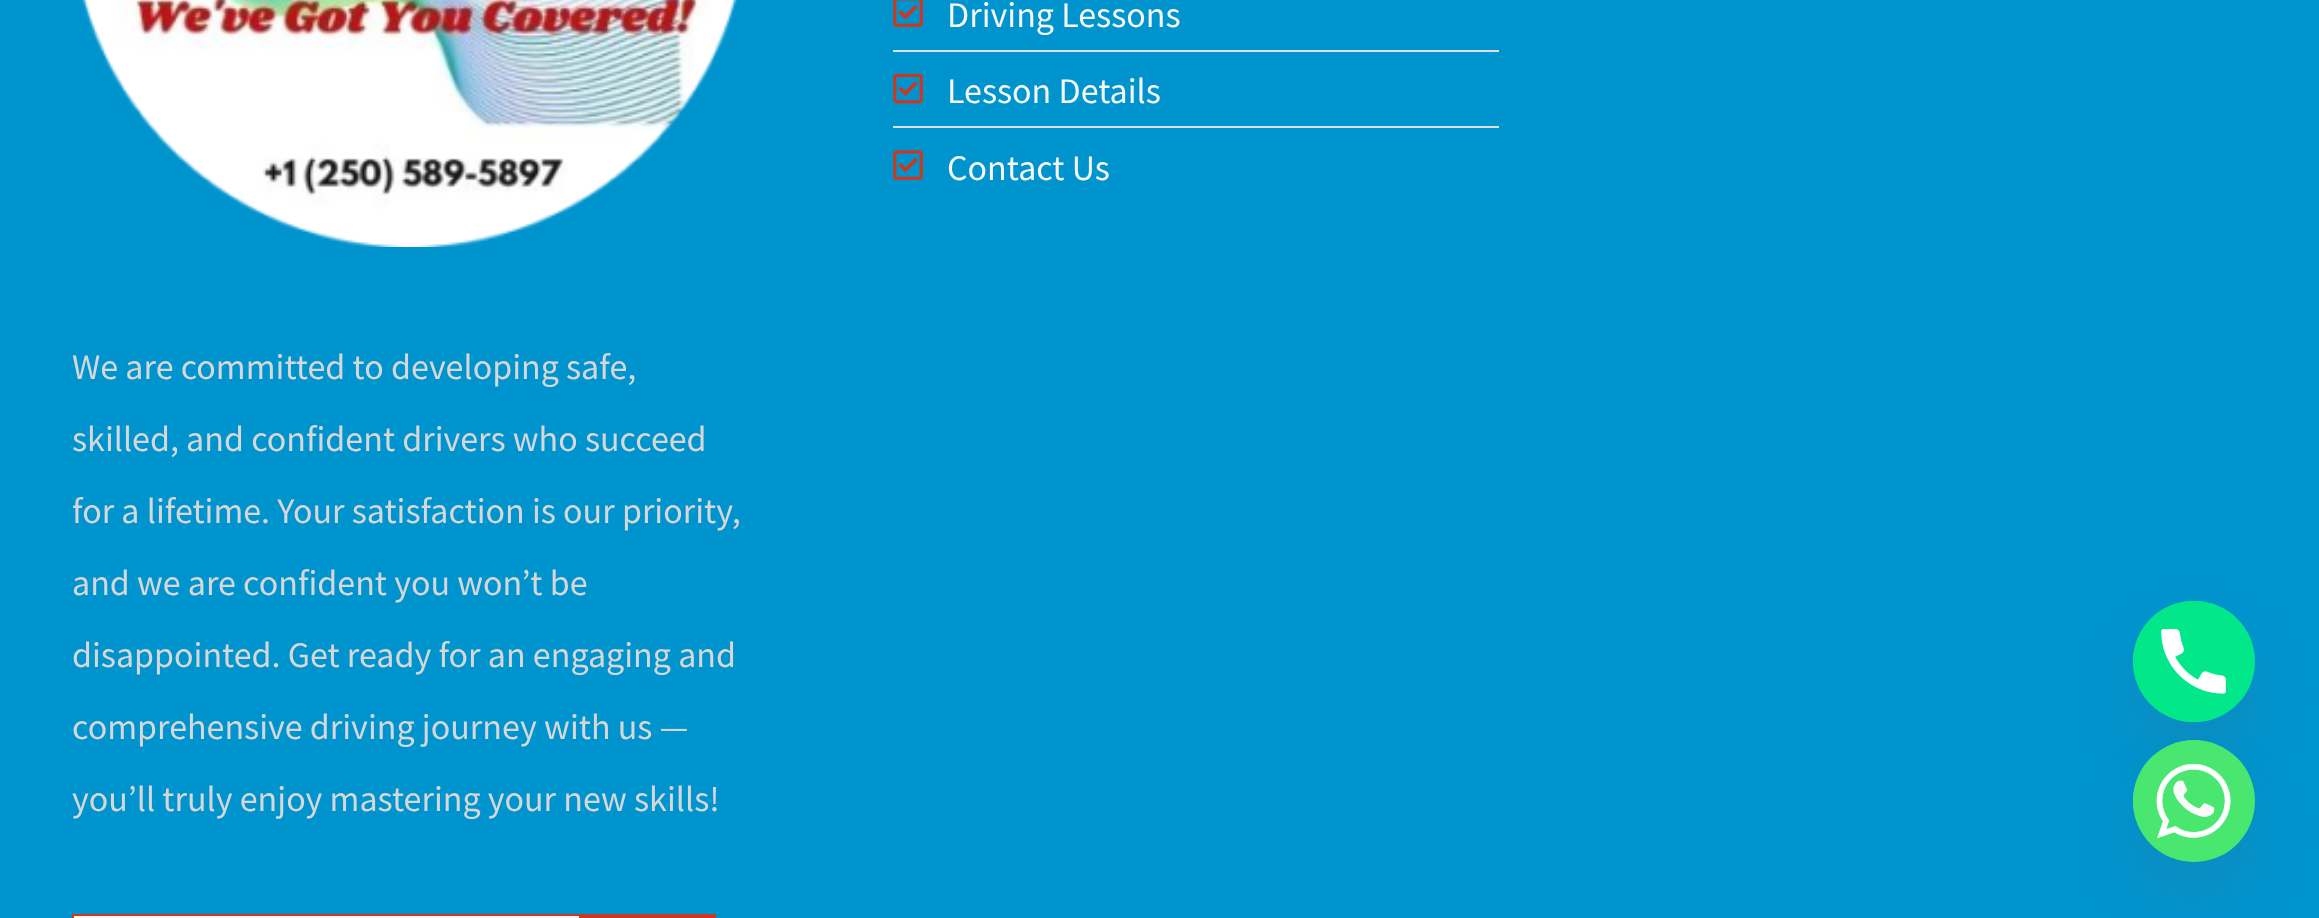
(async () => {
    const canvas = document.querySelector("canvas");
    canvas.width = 2319;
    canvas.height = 918;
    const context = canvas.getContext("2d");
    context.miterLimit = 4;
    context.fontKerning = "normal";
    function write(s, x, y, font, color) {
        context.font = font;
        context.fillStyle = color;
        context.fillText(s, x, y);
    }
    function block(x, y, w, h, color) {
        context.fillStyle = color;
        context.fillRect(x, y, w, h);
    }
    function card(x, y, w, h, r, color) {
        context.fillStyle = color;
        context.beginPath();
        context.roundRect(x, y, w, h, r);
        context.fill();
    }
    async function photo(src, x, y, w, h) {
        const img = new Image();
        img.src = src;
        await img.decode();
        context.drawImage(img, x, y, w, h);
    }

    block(0, 0, 2319, 918, "rgb(0, 148, 206)");
    await photo("media/1.png", 893, 0, 30, 27);
    write("Driving Lessons", 947, 27, "36px Source Sans Pro", "rgb(246, 246, 246)");
    block(893, 50, 606, 2, "rgb(221, 221, 221)");
    await photo("media/2.png", 893, 73, 30, 31);
    write("Lesson Details", 947, 103, "36px Source Sans Pro", "rgb(246, 246, 246)");
    block(893, 126, 606, 2, "rgb(221, 221, 221)");
    await photo("media/3.png", 893, 150, 30, 30);
    write("Contact Us", 947, 180, "36px Source Sans Pro", "rgb(246, 246, 246)");
    await photo("media/4.png", 82, 0, 655, 247);
    write("We are committed to developing safe,", 72, 379, "36px Source Sans Pro", "rgb(215, 215, 215)");
    write("skilled, and confident drivers who succeed", 72, 451, "36px Source Sans Pro", "rgb(215, 215, 215)");
    write("for a lifetime. Your satisfaction is our priority,", 72, 523, "36px Source Sans Pro", "rgb(215, 215, 215)");
    write("and we are confident you won’t be", 72, 595, "36px Source Sans Pro", "rgb(215, 215, 215)");
    write("disappointed. Get ready for an engaging and", 72, 667, "36px Source Sans Pro", "rgb(215, 215, 215)");
    write("comprehensive driving journey with us —", 72, 739, "36px Source Sans Pro", "rgb(215, 215, 215)");
    write("you’ll truly enjoy mastering your new skills!", 72, 811, "36px Source Sans Pro", "rgb(215, 215, 215)");
    context.fillStyle = "rgb(246, 246, 246)";
    context.beginPath();
    context.rect(73, 915, 507, 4);
    context.fill();
    context.strokeStyle = "rgb(206, 55, 30)";
    context.lineWidth = 2;
    context.stroke();
    block(581, 914, 135, 4, "rgb(206, 55, 30)");
    context.fillStyle = "rgba(73, 104, 126, 0.16)";
    context.filter = "blur(27px)";
    context.beginPath();
    context.roundRect(2133, 637, 122, 121, 60.5);
    context.fill();
    context.filter = "none";
    card(2133, 601, 122, 121, 60.5, "rgb(3, 231, 139)");
    await photo("media/5.png", 2133, 601, 93, 121);
    context.fillStyle = "rgba(73, 104, 126, 0.16)";
    context.filter = "blur(27px)";
    context.beginPath();
    context.roundRect(2133, 776, 122, 122, 61);
    context.fill();
    context.filter = "none";
    context.fillStyle = "rgb(73, 230, 112)";
    context.beginPath();
    context.arc(2194, 801, 61, 0, Math.PI * 2);
    context.fill();
    await photo("media/6.png", 2133, 740, 98, 122);
})();
